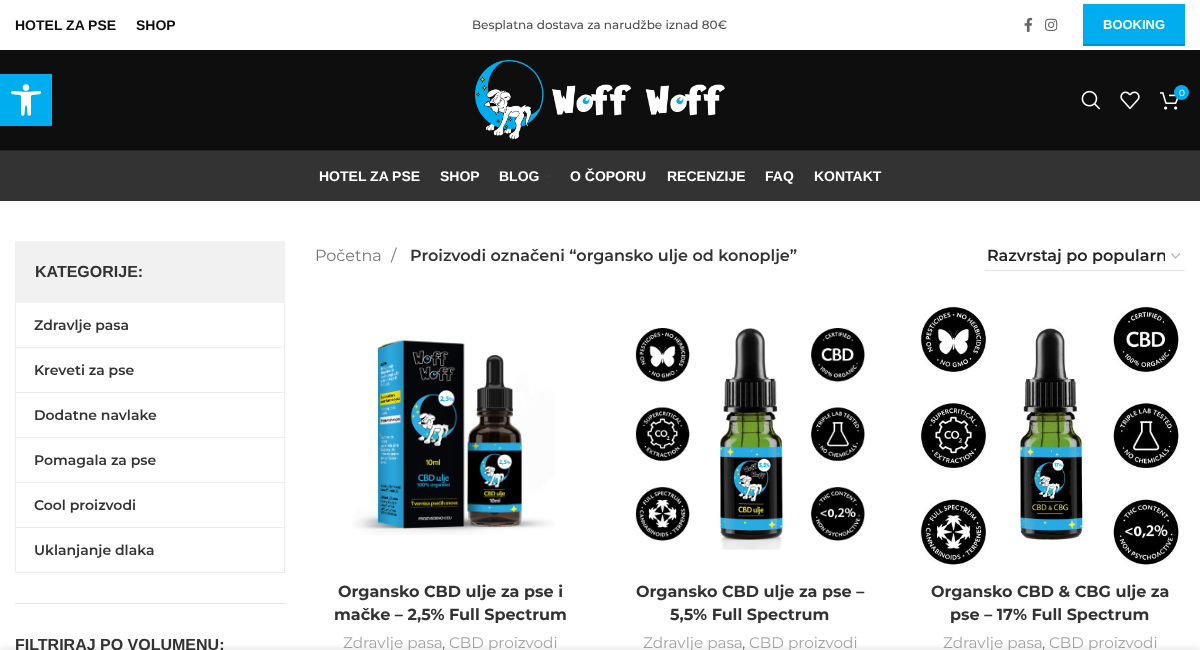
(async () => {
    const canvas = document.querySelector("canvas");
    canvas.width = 1200;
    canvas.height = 650;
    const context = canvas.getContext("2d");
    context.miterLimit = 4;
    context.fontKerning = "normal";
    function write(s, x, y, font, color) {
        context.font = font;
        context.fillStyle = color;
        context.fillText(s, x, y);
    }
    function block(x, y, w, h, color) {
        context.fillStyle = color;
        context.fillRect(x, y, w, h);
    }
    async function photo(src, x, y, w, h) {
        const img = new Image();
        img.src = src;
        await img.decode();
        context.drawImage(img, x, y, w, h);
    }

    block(0, 0, 1200, 650, "rgb(255, 255, 255)");
    write("HOTEL ZA PSE", 15, 30, "bold 14px Liberation Sans", "rgb(15, 15, 15)");
    write("SHOP", 136, 30, "bold 14px Liberation Sans", "rgb(15, 15, 15)");
    write("Besplatna dostava za narudžbe iznad 80€", 472, 29, "500 12px Montserrat", "rgb(79, 79, 79)");
    await photo("media/1.png", 1024, 17, 9, 15);
    await photo("media/2.png", 1045, 18, 13, 13);
    block(1083, 4, 102, 40, "rgb(0, 174, 239)");
    block(1083, 44, 102, 2, "rgb(0, 148, 203)");
    write("BOOKING", 1103, 29, "bold 13px Liberation Sans", "rgb(255, 255, 255)");
    block(0, 50, 1200, 100, "rgb(14, 14, 14)");
    block(0, 150, 1200, 1, "rgb(37, 37, 37)");
    await photo("media/3.png", 475, 60, 250, 80);
    await photo("media/4.png", 1081, 90, 20, 20);
    await photo("media/5.png", 1120, 91, 20, 18);
    await photo("media/6.png", 1160, 92, 19, 18);
    context.fillStyle = "rgb(0, 174, 239)";
    context.beginPath();
    context.arc(1181.5, 92.5, 7.5, 0, Math.PI * 2);
    context.fill();
    write("0", 1179, 96, "9px Montserrat", "rgb(255, 255, 255)");
    block(0, 151, 1200, 50, "rgb(51, 51, 51)");
    write("HOTEL ZA PSE", 319, 181, "bold 14px Liberation Sans", "rgb(255, 255, 255)");
    write("SHOP", 440, 181, "bold 14px Liberation Sans", "rgb(255, 255, 255)");
    write("BLOG", 499, 181, "bold 14px Liberation Sans", "rgb(255, 255, 255)");
    await photo("media/7.png", 544, 174, 6, 4);
    write("O ČOPORU", 570, 181, "bold 14px Liberation Sans", "rgb(255, 255, 255)");
    write("RECENZIJE", 667, 181, "bold 14px Liberation Sans", "rgb(255, 255, 255)");
    write("FAQ", 765, 181, "bold 14px Liberation Sans", "rgb(255, 255, 255)");
    write("KONTAKT", 814, 181, "bold 14px Liberation Sans", "rgb(255, 255, 255)");
    block(15, 603, 270, 1, "rgb(228, 228, 228)");
    block(15, 241, 270, 62, "rgb(241, 241, 241)");
    write("KATEGORIJE:", 35, 277, "bold 16px Liberation Sans", "rgb(51, 51, 51)");
    context.fillStyle = "rgb(236, 236, 236)";
    context.beginPath();
    context.moveTo(285, 303);
    context.lineTo(285, 573);
    context.lineTo(284, 572);
    context.lineTo(284, 303);
    context.closePath();
    context.fill();
    context.fillStyle = "rgba(0, 0, 0, 0.07)";
    context.beginPath();
    context.moveTo(285, 573);
    context.lineTo(15, 573);
    context.lineTo(16, 572);
    context.lineTo(284, 572);
    context.closePath();
    context.fill();
    context.beginPath();
    context.moveTo(15, 573);
    context.lineTo(15, 303);
    context.lineTo(16, 303);
    context.lineTo(16, 572);
    context.closePath();
    context.fill();
    block(16, 347, 268, 1, "rgb(236, 236, 236)");
    write("Zdravlje pasa", 34, 330, "600 14px Montserrat", "rgb(51, 51, 51)");
    block(16, 392, 268, 1, "rgb(236, 236, 236)");
    write("Kreveti za pse", 34, 375, "600 14px Montserrat", "rgb(51, 51, 51)");
    block(16, 437, 268, 1, "rgb(236, 236, 236)");
    write("Dodatne navlake", 34, 420, "600 14px Montserrat", "rgb(51, 51, 51)");
    block(16, 482, 268, 1, "rgb(236, 236, 236)");
    write("Pomagala za pse", 34, 465, "600 14px Montserrat", "rgb(51, 51, 51)");
    block(16, 527, 268, 1, "rgb(236, 236, 236)");
    write("Cool proizvodi", 34, 510, "600 14px Montserrat", "rgb(51, 51, 51)");
    write("Uklanjanje dlaka", 34, 555, "600 14px Montserrat", "rgb(51, 51, 51)");
    write("FILTRIRAJ PO VOLUMENU:", 15, 650, "bold 16px Liberation Sans", "rgb(51, 51, 51)");
    write("Početna", 315, 261, "16px Montserrat", "rgb(119, 119, 119)");
    write("/", 391, 261, "16px Montserrat", "rgb(119, 119, 119)");
    write("Proizvodi označeni “organsko ulje od konoplje”", 410, 261, "600 16px Montserrat", "rgb(51, 51, 51)");
    context.beginPath();
    context.moveTo(1171.5, 253.5);
    context.lineTo(1175.5, 258);
    context.lineTo(1180, 253.5);
    context.strokeStyle = "rgb(187, 187, 187)";
    context.lineWidth = 1.4;
    context.stroke();
    block(985, 270, 200, 1, "rgb(230, 230, 230)");
    context.save();
    context.beginPath();
    context.rect(987, 246, 178, 19);
    context.clip();
    write("Razvrstaj po popularn", 987, 261, "600 16px Montserrat", "rgb(36, 36, 36)");
    context.restore();
    await photo("media/8.png", 352, 337, 203, 198);
    write("Organsko CBD ulje za pse i", 338, 597, "bold 16px Montserrat", "rgb(51, 51, 51)");
    write("mačke – 2,5% Full Spectrum", 334, 620, "bold 16px Montserrat", "rgb(51, 51, 51)");
    write("Zdravlje pasa", 343, 648, "15.25px Montserrat", "rgb(165, 165, 165)");
    write(",", 442, 648, "15.25px Montserrat", "rgb(119, 119, 119)");
    write("CBD proizvodi", 449, 648, "15.25px Montserrat", "rgb(165, 165, 165)");
    await photo("media/9.png", 635, 328, 230, 222);
    write("Organsko CBD ulje za pse –", 636, 597, "bold 16px Montserrat", "rgb(51, 51, 51)");
    write("5,5% Full Spectrum", 670, 620, "bold 16px Montserrat", "rgb(51, 51, 51)");
    write("Zdravlje pasa", 643, 648, "15.25px Montserrat", "rgb(165, 165, 165)");
    write(",", 742, 648, "15.25px Montserrat", "rgb(119, 119, 119)");
    write("CBD proizvodi", 749, 648, "15.25px Montserrat", "rgb(165, 165, 165)");
    await photo("media/10.png", 920, 306, 261, 261);
    write("Organsko CBD & CBG ulje za", 931, 597, "bold 16px Montserrat", "rgb(51, 51, 51)");
    write("pse – 17% Full Spectrum", 950, 620, "bold 16px Montserrat", "rgb(51, 51, 51)");
    write("Zdravlje pasa", 943, 648, "15.25px Montserrat", "rgb(165, 165, 165)");
    write(",", 1042, 648, "15.25px Montserrat", "rgb(119, 119, 119)");
    write("CBD proizvodi", 1049, 648, "15.25px Montserrat", "rgb(165, 165, 165)");
    block(0, 74, 52, 52, "rgb(0, 173, 239)");
    await photo("media/11.png", 11, 84, 30, 32);
    context.fillStyle = "rgba(0, 0, 0, 0.14)";
    context.filter = "blur(4.5px)";
    context.beginPath();
    context.rect(0, 650, 1200, 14);
    context.fill();
    context.filter = "none";
})();
